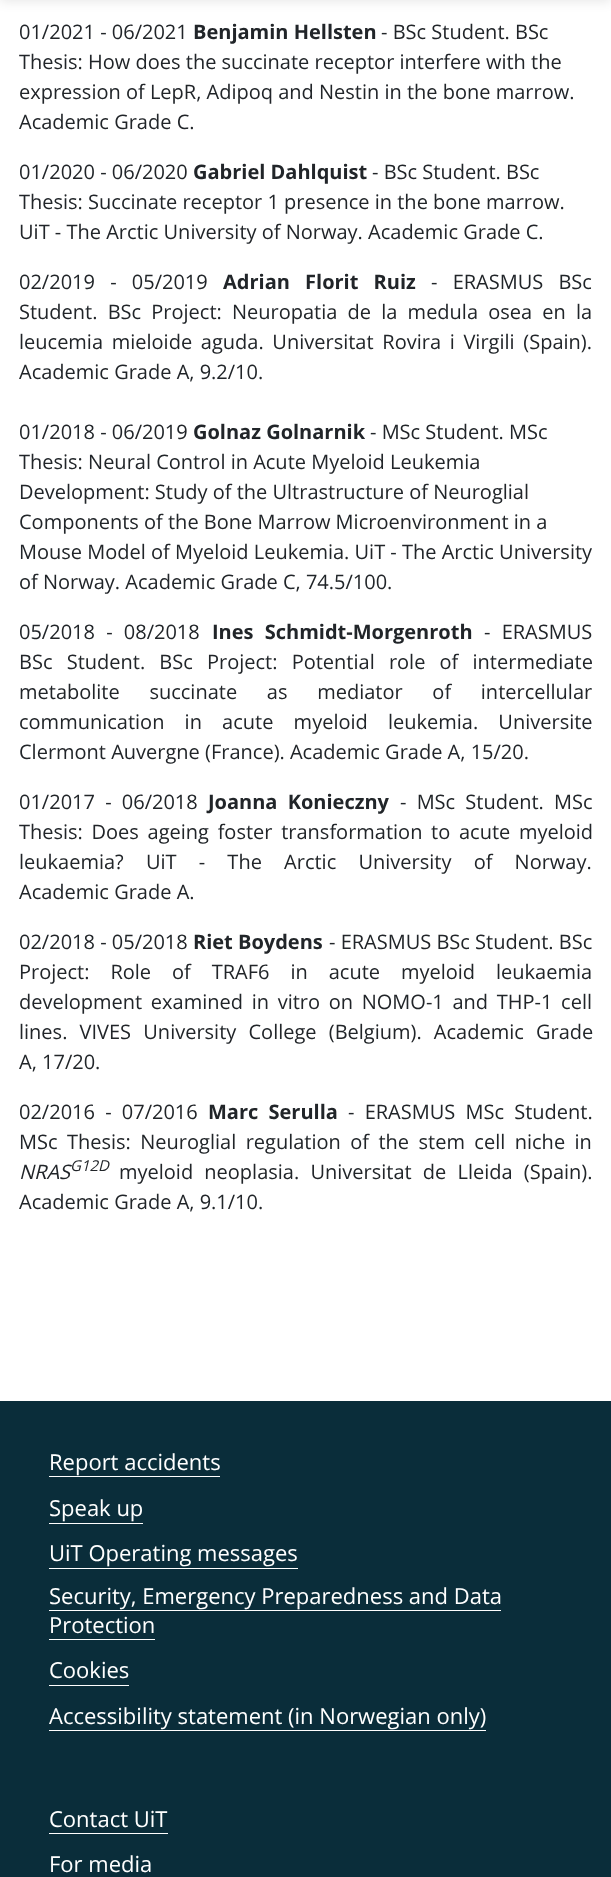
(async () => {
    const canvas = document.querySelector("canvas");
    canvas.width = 611;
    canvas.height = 1877;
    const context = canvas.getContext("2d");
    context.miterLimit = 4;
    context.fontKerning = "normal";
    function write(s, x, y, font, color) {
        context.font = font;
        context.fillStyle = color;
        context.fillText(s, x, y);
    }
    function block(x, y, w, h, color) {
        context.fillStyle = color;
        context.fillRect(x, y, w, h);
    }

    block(0, 0, 611, 1877, "rgb(255, 255, 255)");
    context.fillStyle = "rgba(0, 0, 0, 0.1)";
    context.filter = "blur(6px)";
    context.beginPath();
    context.rect(0, -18, 611, 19);
    context.fill();
    context.filter = "none";
    write("01/2021 - 06/2021", 19, 39, "20px Open Sans", "rgb(33, 37, 41)");
    write("Benjamin Hellsten", 193, 39, "bold 20px Open Sans", "rgb(33, 37, 41)");
    write("- BSc Student. BSc", 381, 39, "20px Open Sans", "rgb(33, 37, 41)");
    write("Thesis: How does the succinate receptor interfere with the", 19, 69, "20px Open Sans", "rgb(33, 37, 41)");
    write("expression of LepR, Adipoq and Nestin in the bone marrow.", 19, 99, "20px Open Sans", "rgb(33, 37, 41)");
    write("Academic Grade C.", 19, 129, "20px Open Sans", "rgb(33, 37, 41)");
    write("01/2020 - 06/2020", 19, 179, "20px Open Sans", "rgb(33, 37, 41)");
    write("Gabriel Dahlquist", 193, 179, "bold 20px Open Sans", "rgb(33, 37, 41)");
    write("- BSc Student. BSc", 372, 179, "20px Open Sans", "rgb(33, 37, 41)");
    write("Thesis: Succinate receptor 1 presence in the bone marrow.", 19, 209, "20px Open Sans", "rgb(33, 37, 41)");
    write("UiT - The Arctic University of Norway. Academic Grade C.", 19, 239, "20px Open Sans", "rgb(33, 37, 41)");
    context.wordSpacing = "10px";
    write("02/2019 - 05/2019", 19, 289, "20px Open Sans", "rgb(33, 37, 41)");
    write("Adrian Florit Ruiz", 223, 289, "bold 20px Open Sans", "rgb(33, 37, 41)");
    write("- ERASMUS BSc", 431, 289, "20px Open Sans", "rgb(33, 37, 41)");
    context.wordSpacing = "5px";
    write("Student. BSc Project: Neuropatia de la medula osea en la", 19, 319, "20px Open Sans", "rgb(33, 37, 41)");
    context.wordSpacing = "3.5px";
    write("leucemia mieloide aguda. Universitat Rovira i Virgili (Spain).", 19, 349, "20px Open Sans", "rgb(33, 37, 41)");
    context.wordSpacing = "0px";
    write("Academic Grade A, 9.2/10.", 19, 379, "20px Open Sans", "rgb(33, 37, 41)");
    write("01/2018 - 06/2019", 19, 439, "20px Open Sans", "rgb(33, 37, 41)");
    write("Golnaz Golnarnik", 193, 439, "bold 20px Open Sans", "rgb(33, 37, 41)");
    write("- MSc Student. MSc", 370, 439, "20px Open Sans", "rgb(33, 37, 41)");
    write("Thesis: Neural Control in Acute Myeloid Leukemia", 19, 469, "20px Open Sans", "rgb(33, 37, 41)");
    write("Development: Study of the Ultrastructure of Neuroglial", 19, 499, "20px Open Sans", "rgb(33, 37, 41)");
    write("Components of the Bone Marrow Microenvironment in a", 19, 529, "20px Open Sans", "rgb(33, 37, 41)");
    write("Mouse Model of Myeloid Leukemia. UiT - The Arctic University", 19, 559, "20px Open Sans", "rgb(33, 37, 41)");
    write("of Norway. Academic Grade C, 74.5/100.", 19, 589, "20px Open Sans", "rgb(33, 37, 41)");
    context.wordSpacing = "6px";
    write("05/2018 - 08/2018", 19, 639, "20px Open Sans", "rgb(33, 37, 41)");
    write("Ines Schmidt-Morgenroth", 212, 639, "bold 20px Open Sans", "rgb(33, 37, 41)");
    write("- ERASMUS", 484, 639, "20px Open Sans", "rgb(33, 37, 41)");
    context.wordSpacing = "9px";
    write("BSc Student. BSc Project: Potential role of intermediate", 19, 669, "20px Open Sans", "rgb(33, 37, 41)");
    context.wordSpacing = "24.5px";
    write("metabolite succinate as mediator of intercellular", 19, 699, "20px Open Sans", "rgb(33, 37, 41)");
    context.wordSpacing = "15px";
    write("communication in acute myeloid leukemia. Universite", 19, 729, "20px Open Sans", "rgb(33, 37, 41)");
    context.wordSpacing = "0px";
    write("Clermont Auvergne (France). Academic Grade A, 15/20.", 19, 759, "20px Open Sans", "rgb(33, 37, 41)");
    context.wordSpacing = "5px";
    write("01/2017 - 06/2018", 19, 809, "20px Open Sans", "rgb(33, 37, 41)");
    write("Joanna Konieczny", 208, 809, "bold 20px Open Sans", "rgb(33, 37, 41)");
    write("- MSc Student. MSc", 400, 809, "20px Open Sans", "rgb(33, 37, 41)");
    context.wordSpacing = "3.5px";
    write("Thesis: Does ageing foster transformation to acute myeloid", 19, 839, "20px Open Sans", "rgb(33, 37, 41)");
    context.wordSpacing = "17px";
    write("leukaemia? UiT - The Arctic University of Norway.", 19, 869, "20px Open Sans", "rgb(33, 37, 41)");
    context.wordSpacing = "0px";
    write("Academic Grade A.", 19, 899, "20px Open Sans", "rgb(33, 37, 41)");
    write("02/2018 - 05/2018", 19, 949, "20px Open Sans", "rgb(33, 37, 41)");
    write("Riet Boydens", 193, 949, "bold 20px Open Sans", "rgb(33, 37, 41)");
    write("- ERASMUS BSc Student. BSc", 329, 949, "20px Open Sans", "rgb(33, 37, 41)");
    context.wordSpacing = "15.75px";
    write("Project: Role of TRAF6 in acute myeloid leukaemia", 19, 979, "20px Open Sans", "rgb(33, 37, 41)");
    context.wordSpacing = "3.5px";
    write("development examined in vitro on NOMO-1 and THP-1 cell", 19, 1009, "20px Open Sans", "rgb(33, 37, 41)");
    context.wordSpacing = "7px";
    write("lines. VIVES University College (Belgium). Academic Grade", 19, 1039, "20px Open Sans", "rgb(33, 37, 41)");
    context.wordSpacing = "0px";
    write("A, 17/20.", 19, 1069, "20px Open Sans", "rgb(33, 37, 41)");
    context.wordSpacing = "5px";
    write("02/2016 - 07/2016", 19, 1119, "20px Open Sans", "rgb(33, 37, 41)");
    write("Marc Serulla", 208, 1119, "bold 20px Open Sans", "rgb(33, 37, 41)");
    write("- ERASMUS MSc Student.", 348, 1119, "20px Open Sans", "rgb(33, 37, 41)");
    context.wordSpacing = "4.25px";
    write("MSc Thesis: Neuroglial regulation of the stem cell niche in", 19, 1149, "20px Open Sans", "rgb(33, 37, 41)");
    context.wordSpacing = "0px";
    write("NRAS", 19, 1179, "italic 20px Open Sans", "rgb(33, 37, 41)");
    write("G12D", 70, 1171, "italic 15px Open Sans", "rgb(33, 37, 41)");
    context.wordSpacing = "6px";
    write("myeloid neoplasia. Universitat de Lleida (Spain).", 119, 1179, "20px Open Sans", "rgb(33, 37, 41)");
    context.wordSpacing = "0px";
    write("Academic Grade A, 9.1/10.", 19, 1209, "20px Open Sans", "rgb(33, 37, 41)");
    block(0, 1401, 611, 476, "rgb(10, 45, 58)");
    write("Report accidents", 49, 1470, "22px Open Sans", "rgb(255, 255, 255)");
    block(49, 1476, 171, 1, "rgb(255, 255, 255)");
    write("Speak up", 49, 1516, "22px Open Sans", "rgb(255, 255, 255)");
    block(49, 1523, 94, 1, "rgb(255, 255, 255)");
    write("UiT Operating messages", 49, 1561, "22px Open Sans", "rgb(255, 255, 255)");
    block(49, 1568, 249, 1, "rgb(255, 255, 255)");
    write("Security, Emergency Preparedness and Data", 49, 1604, "22px Open Sans", "rgb(255, 255, 255)");
    block(49, 1610, 452, 1, "rgb(255, 255, 255)");
    write("Protection", 49, 1633, "22px Open Sans", "rgb(255, 255, 255)");
    block(49, 1639, 106, 1, "rgb(255, 255, 255)");
    write("Cookies", 49, 1678, "22px Open Sans", "rgb(255, 255, 255)");
    block(49, 1685, 80, 1, "rgb(255, 255, 255)");
    write("Accessibility statement (in Norwegian only)", 49, 1724, "22px Open Sans", "rgb(255, 255, 255)");
    block(49, 1730, 437, 1, "rgb(255, 255, 255)");
    write("Contact UiT", 49, 1827, "22px Open Sans", "rgb(255, 255, 255)");
    block(49, 1833, 119, 1, "rgb(255, 255, 255)");
    write("For media", 49, 1872, "22px Open Sans", "rgb(255, 255, 255)");
})();
